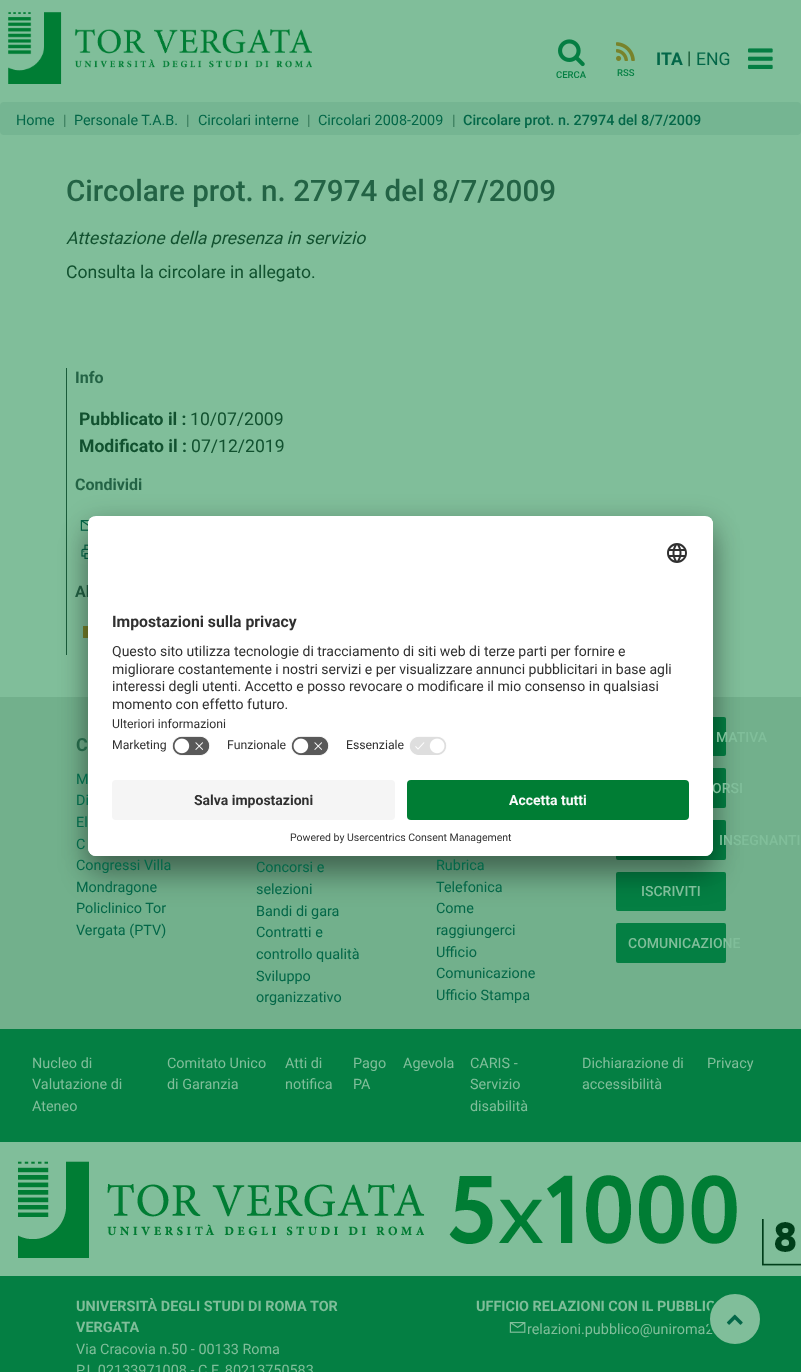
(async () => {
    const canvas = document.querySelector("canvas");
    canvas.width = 801;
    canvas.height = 1372;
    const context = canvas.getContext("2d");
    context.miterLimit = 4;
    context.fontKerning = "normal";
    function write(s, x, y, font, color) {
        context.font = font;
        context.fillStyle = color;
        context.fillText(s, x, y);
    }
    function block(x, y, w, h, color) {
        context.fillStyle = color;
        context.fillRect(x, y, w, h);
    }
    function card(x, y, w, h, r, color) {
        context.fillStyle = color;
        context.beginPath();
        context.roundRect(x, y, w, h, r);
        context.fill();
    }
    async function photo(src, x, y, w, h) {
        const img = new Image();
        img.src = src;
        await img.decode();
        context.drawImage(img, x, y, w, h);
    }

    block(0, 0, 801, 1372, "rgb(128, 190, 154)");
    await photo("media/1.png", 8, 12, 304, 72);
    write("ITA", 656, 65, "bold 17.6px Roboto", "rgb(3, 103, 72)");
    write("|", 687, 64, "17.6px Roboto", "rgb(17, 81, 47)");
    write("ENG", 696, 65, "17.6px Roboto", "rgb(3, 103, 72)");
    await photo("media/2.png", 748, 48, 25, 21);
    await photo("media/3.png", 558, 39, 27, 28);
    write("CERCA", 556, 78, "500 9.5px Roboto", "rgb(4, 127, 67)");
    await photo("media/4.png", 616, 42, 19, 19);
    write("RSS", 617, 76, "500 9.5px Roboto", "rgb(4, 127, 67)");
    card(0, 102, 801, 33, 4, "rgb(117, 181, 146)");
    write("Home", 16, 125, "14.4px Roboto", "rgb(3, 103, 72)");
    write("|", 63, 125, "14.4px Roboto", "rgb(54, 121, 89)");
    write("Personale T.A.B.", 74, 125, "14.4px Roboto", "rgb(3, 103, 72)");
    write("|", 186, 125, "14.4px Roboto", "rgb(54, 121, 89)");
    write("Circolari interne", 198, 125, "14.4px Roboto", "rgb(3, 103, 72)");
    write("|", 307, 125, "14.4px Roboto", "rgb(54, 121, 89)");
    write("Circolari 2008-2009", 318, 125, "14.4px Roboto", "rgb(3, 103, 72)");
    write("|", 452, 125, "500 14.4px Roboto", "rgb(54, 121, 89)");
    write("Circolare prot. n. 27974 del 8/7/2009", 463, 125, "500 14.4px Roboto", "rgb(3, 103, 72)");
    write("Circolare prot. n. 27974 del 8/7/2009", 66, 201, "500 29.6px Roboto", "rgb(35, 99, 69)");
    write("Attestazione della presenza in servizio", 66, 244, "italic 17.6px Roboto", "rgb(17, 81, 47)");
    write("Consulta la circolare in allegato.", 66, 278, "17.6px Roboto", "rgb(17, 81, 47)");
    block(66, 368, 1, 287, "rgb(26, 92, 58)");
    write("Info", 75, 383, "bold 16px Roboto", "rgb(35, 99, 69)");
    write("Pubblicato il :", 79, 425, "bold 17.6px Roboto", "rgb(17, 81, 47)");
    write("10/07/2009", 190, 425, "17.6px Roboto", "rgb(17, 81, 47)");
    write("Modificato il :", 79, 452, "bold 17.6px Roboto", "rgb(17, 81, 47)");
    write("07/12/2019", 191, 452, "17.6px Roboto", "rgb(17, 81, 47)");
    write("Condividi", 75, 490, "bold 16px Roboto", "rgb(35, 99, 69)");
    await photo("media/5.png", 80, 520, 10, 11);
    await photo("media/6.png", 81, 544, 7, 15);
    write("Al", 75, 597, "bold 16px Roboto", "rgb(35, 99, 69)");
    block(83, 626, 5, 12, "rgb(120, 131, 43)");
    block(0, 697, 801, 332, "rgb(114, 176, 140)");
    card(616, 717, 110, 39, 2, "rgb(4, 127, 67)");
    card(616, 768, 110, 40, 2, "rgb(4, 127, 67)");
    card(616, 820, 110, 40, 2, "rgb(4, 127, 67)");
    card(616, 872, 110, 39, 2, "rgb(4, 127, 67)");
    context.fillStyle = "rgba(0, 0, 0, 0.3)";
    context.filter = "blur(14px)";
    context.beginPath();
    context.roundRect(88, 536, 625, 340, 8);
    context.fill();
    context.filter = "none";
    context.fillStyle = "rgba(0, 0, 0, 0.22)";
    context.filter = "blur(13px)";
    context.beginPath();
    context.roundRect(88, 521, 625, 340, 8);
    context.fill();
    context.filter = "none";
    write("ORSI", 712, 793, "500 14px Roboto", "rgb(128, 190, 154)");
    card(88, 516, 625, 340, 8, "rgb(255, 255, 255)");
    context.save();
    context.beginPath();
    context.roundRect(88, 516, 625, 340, 8);
    context.clip();
    context.beginPath();
    context.roundRect(88, 516, 625, 256, [8, 8, 0, 0]);
    context.clip();
    block(88, 517, 625, 255, "rgb(255, 255, 255)");
    block(88, 517, 625, 215, "rgb(255, 255, 255)");
    context.restore();
    await photo("media/7.png", 667, 543, 20, 20);
    write("Impostazioni sulla privacy", 112, 627, "bold 15.75px Roboto", "rgb(48, 48, 48)");
    write("Questo sito utilizza tecnologie di tracciamento di siti web di terze parti per fornire e", 112, 656, "14px Roboto", "rgb(48, 48, 48)");
    write("migliorare costantemente i nostri servizi e per visualizzare annunci pubblicitari in base agli", 112, 674, "14px Roboto", "rgb(48, 48, 48)");
    write("interessi degli utenti. Accetto e posso revocare o modificare il mio consenso in qualsiasi", 112, 691, "14px Roboto", "rgb(48, 48, 48)");
    write("momento con effetto futuro.", 112, 709, "14px Roboto", "rgb(48, 48, 48)");
    write("Ulteriori informazioni", 112, 728, "12.25px Roboto", "rgb(48, 48, 48)");
    write("Marketing", 112, 749, "12.25px Roboto", "rgb(48, 48, 48)");
    await photo("media/8.png", 172, 736, 38, 20);
    write("Funzionale", 227, 749, "12.25px Roboto", "rgb(48, 48, 48)");
    await photo("media/8.png", 291, 736, 38, 20);
    write("Essenziale", 346, 749, "12.25px Roboto", "rgb(48, 48, 48)");
    await photo("media/9.png", 409, 736, 38, 19);
    context.fillStyle = "rgb(255, 255, 255)";
    context.beginPath();
    context.roundRect(88, 772, 625, 84, [0, 0, 8, 8]);
    context.fill();
    card(112, 780, 283, 40, 4, "rgb(245, 245, 245)");
    write("Salva impostazioni", 194, 805, "bold 14px Roboto", "rgb(48, 48, 48)");
    card(407, 780, 282, 40, 4, "rgb(0, 125, 52)");
    write("Accetta tutti", 509, 805, "bold 14px Roboto", "rgb(250, 250, 250)");
    write("Powered by Usercentrics Consent Management", 290, 841, "10.5px Roboto", "rgb(48, 48, 48)");
    write("C", 76, 751, "bold 18px Roboto", "rgb(35, 99, 69)");
    write("M", 76, 784, "14.4px Roboto", "rgb(3, 103, 72)");
    write("Di", 76, 805, "14.4px Roboto", "rgb(3, 103, 72)");
    write("El", 76, 827, "14.4px Roboto", "rgb(3, 103, 72)");
    write("C", 76, 849, "14.4px Roboto", "rgb(3, 103, 72)");
    write("Congressi Villa", 76, 870, "14.4px Roboto", "rgb(3, 103, 72)");
    write("Mondragone", 76, 892, "14.4px Roboto", "rgb(3, 103, 72)");
    write("Policlinico Tor", 76, 913, "14.4px Roboto", "rgb(3, 103, 72)");
    write("Vergata (PTV)", 76, 935, "14.4px Roboto", "rgb(3, 103, 72)");
    write("Concorsi e", 256, 872, "14.4px Roboto", "rgb(3, 103, 72)");
    write("selezioni", 256, 894, "14.4px Roboto", "rgb(3, 103, 72)");
    write("Bandi di gara", 256, 916, "14.4px Roboto", "rgb(3, 103, 72)");
    write("Contratti e", 256, 937, "14.4px Roboto", "rgb(3, 103, 72)");
    write("controllo qualità", 256, 959, "14.4px Roboto", "rgb(3, 103, 72)");
    write("Sviluppo", 256, 981, "14.4px Roboto", "rgb(3, 103, 72)");
    write("organizzativo", 256, 1002, "14.4px Roboto", "rgb(3, 103, 72)");
    write("Rubrica", 436, 870, "14.4px Roboto", "rgb(3, 103, 72)");
    write("Telefonica", 436, 892, "14.4px Roboto", "rgb(3, 103, 72)");
    write("Come", 436, 913, "14.4px Roboto", "rgb(3, 103, 72)");
    write("raggiungerci", 436, 935, "14.4px Roboto", "rgb(3, 103, 72)");
    write("Ufficio", 436, 957, "14.4px Roboto", "rgb(3, 103, 72)");
    write("Comunicazione", 436, 978, "14.4px Roboto", "rgb(3, 103, 72)");
    write("Ufficio Stampa", 436, 1000, "14.4px Roboto", "rgb(3, 103, 72)");
    write("MATIVA", 716, 742, "500 14px Roboto", "rgb(128, 190, 154)");
    write("INSEGNANTI", 719, 845, "500 14px Roboto", "rgb(128, 190, 154)");
    write("ISCRIVITI", 641, 896, "500 14px Roboto", "rgb(128, 190, 154)");
    card(616, 923, 110, 40, 2, "rgb(4, 127, 67)");
    write("COMUNICAZIONE", 628, 948, "500 14px Roboto", "rgb(128, 190, 154)");
    block(0, 1029, 801, 113, "rgb(4, 127, 67)");
    write("Nucleo di", 32, 1068, "14.4px Roboto", "rgb(128, 190, 154)");
    write("Valutazione di", 32, 1089, "14.4px Roboto", "rgb(128, 190, 154)");
    write("Ateneo", 32, 1111, "14.4px Roboto", "rgb(128, 190, 154)");
    write("Comitato Unico", 167, 1068, "14.4px Roboto", "rgb(128, 190, 154)");
    write("di Garanzia", 167, 1089, "14.4px Roboto", "rgb(128, 190, 154)");
    write("Atti di", 285, 1068, "14.4px Roboto", "rgb(128, 190, 154)");
    write("notifica", 285, 1089, "14.4px Roboto", "rgb(128, 190, 154)");
    write("Pago", 353, 1068, "14.4px Roboto", "rgb(128, 190, 154)");
    write("PA", 353, 1089, "14.4px Roboto", "rgb(128, 190, 154)");
    write("Agevola", 403, 1068, "14.4px Roboto", "rgb(128, 190, 154)");
    write("CARIS -", 470, 1068, "14.4px Roboto", "rgb(128, 190, 154)");
    write("Servizio", 470, 1089, "14.4px Roboto", "rgb(128, 190, 154)");
    write("disabilità", 470, 1111, "14.4px Roboto", "rgb(128, 190, 154)");
    write("Dichiarazione di", 582, 1068, "14.4px Roboto", "rgb(128, 190, 154)");
    write("accessibilità", 582, 1089, "14.4px Roboto", "rgb(128, 190, 154)");
    write("Privacy", 707, 1068, "14.4px Roboto", "rgb(128, 190, 154)");
    await photo("media/10.png", 18, 1161, 783, 105);
    block(0, 1276, 801, 96, "rgb(4, 127, 67)");
    write("UNIVERSITÀ DEGLI STUDI DI ROMA TOR", 76, 1311, "bold 14.4px Roboto", "rgb(128, 190, 154)");
    write("VERGATA", 76, 1332, "bold 14.4px Roboto", "rgb(128, 190, 154)");
    write("Via Cracovia n.50 - 00133 Roma", 76, 1354, "14.4px Roboto", "rgb(128, 190, 154)");
    write("P.I. 02133971008 - C.F. 80213750583", 76, 1375, "14.4px Roboto", "rgb(128, 190, 154)");
    write("UFFICIO RELAZIONI CON IL PUBBLIC", 476, 1311, "bold 14.4px Roboto", "rgb(128, 190, 154)");
    await photo("media/11.png", 509, 1322, 17, 11);
    write("relazioni.pubblico@uniroma2", 527, 1334, "14.4px Roboto", "rgb(128, 190, 154)");
    context.beginPath();
    context.arc(735, 1319, 26, 0, Math.PI * 2);
    context.fill();
    context.strokeStyle = "rgb(4, 127, 67)";
    context.lineWidth = 2;
    context.stroke();
    await photo("media/12.png", 726, 1314, 17, 11);
})();
